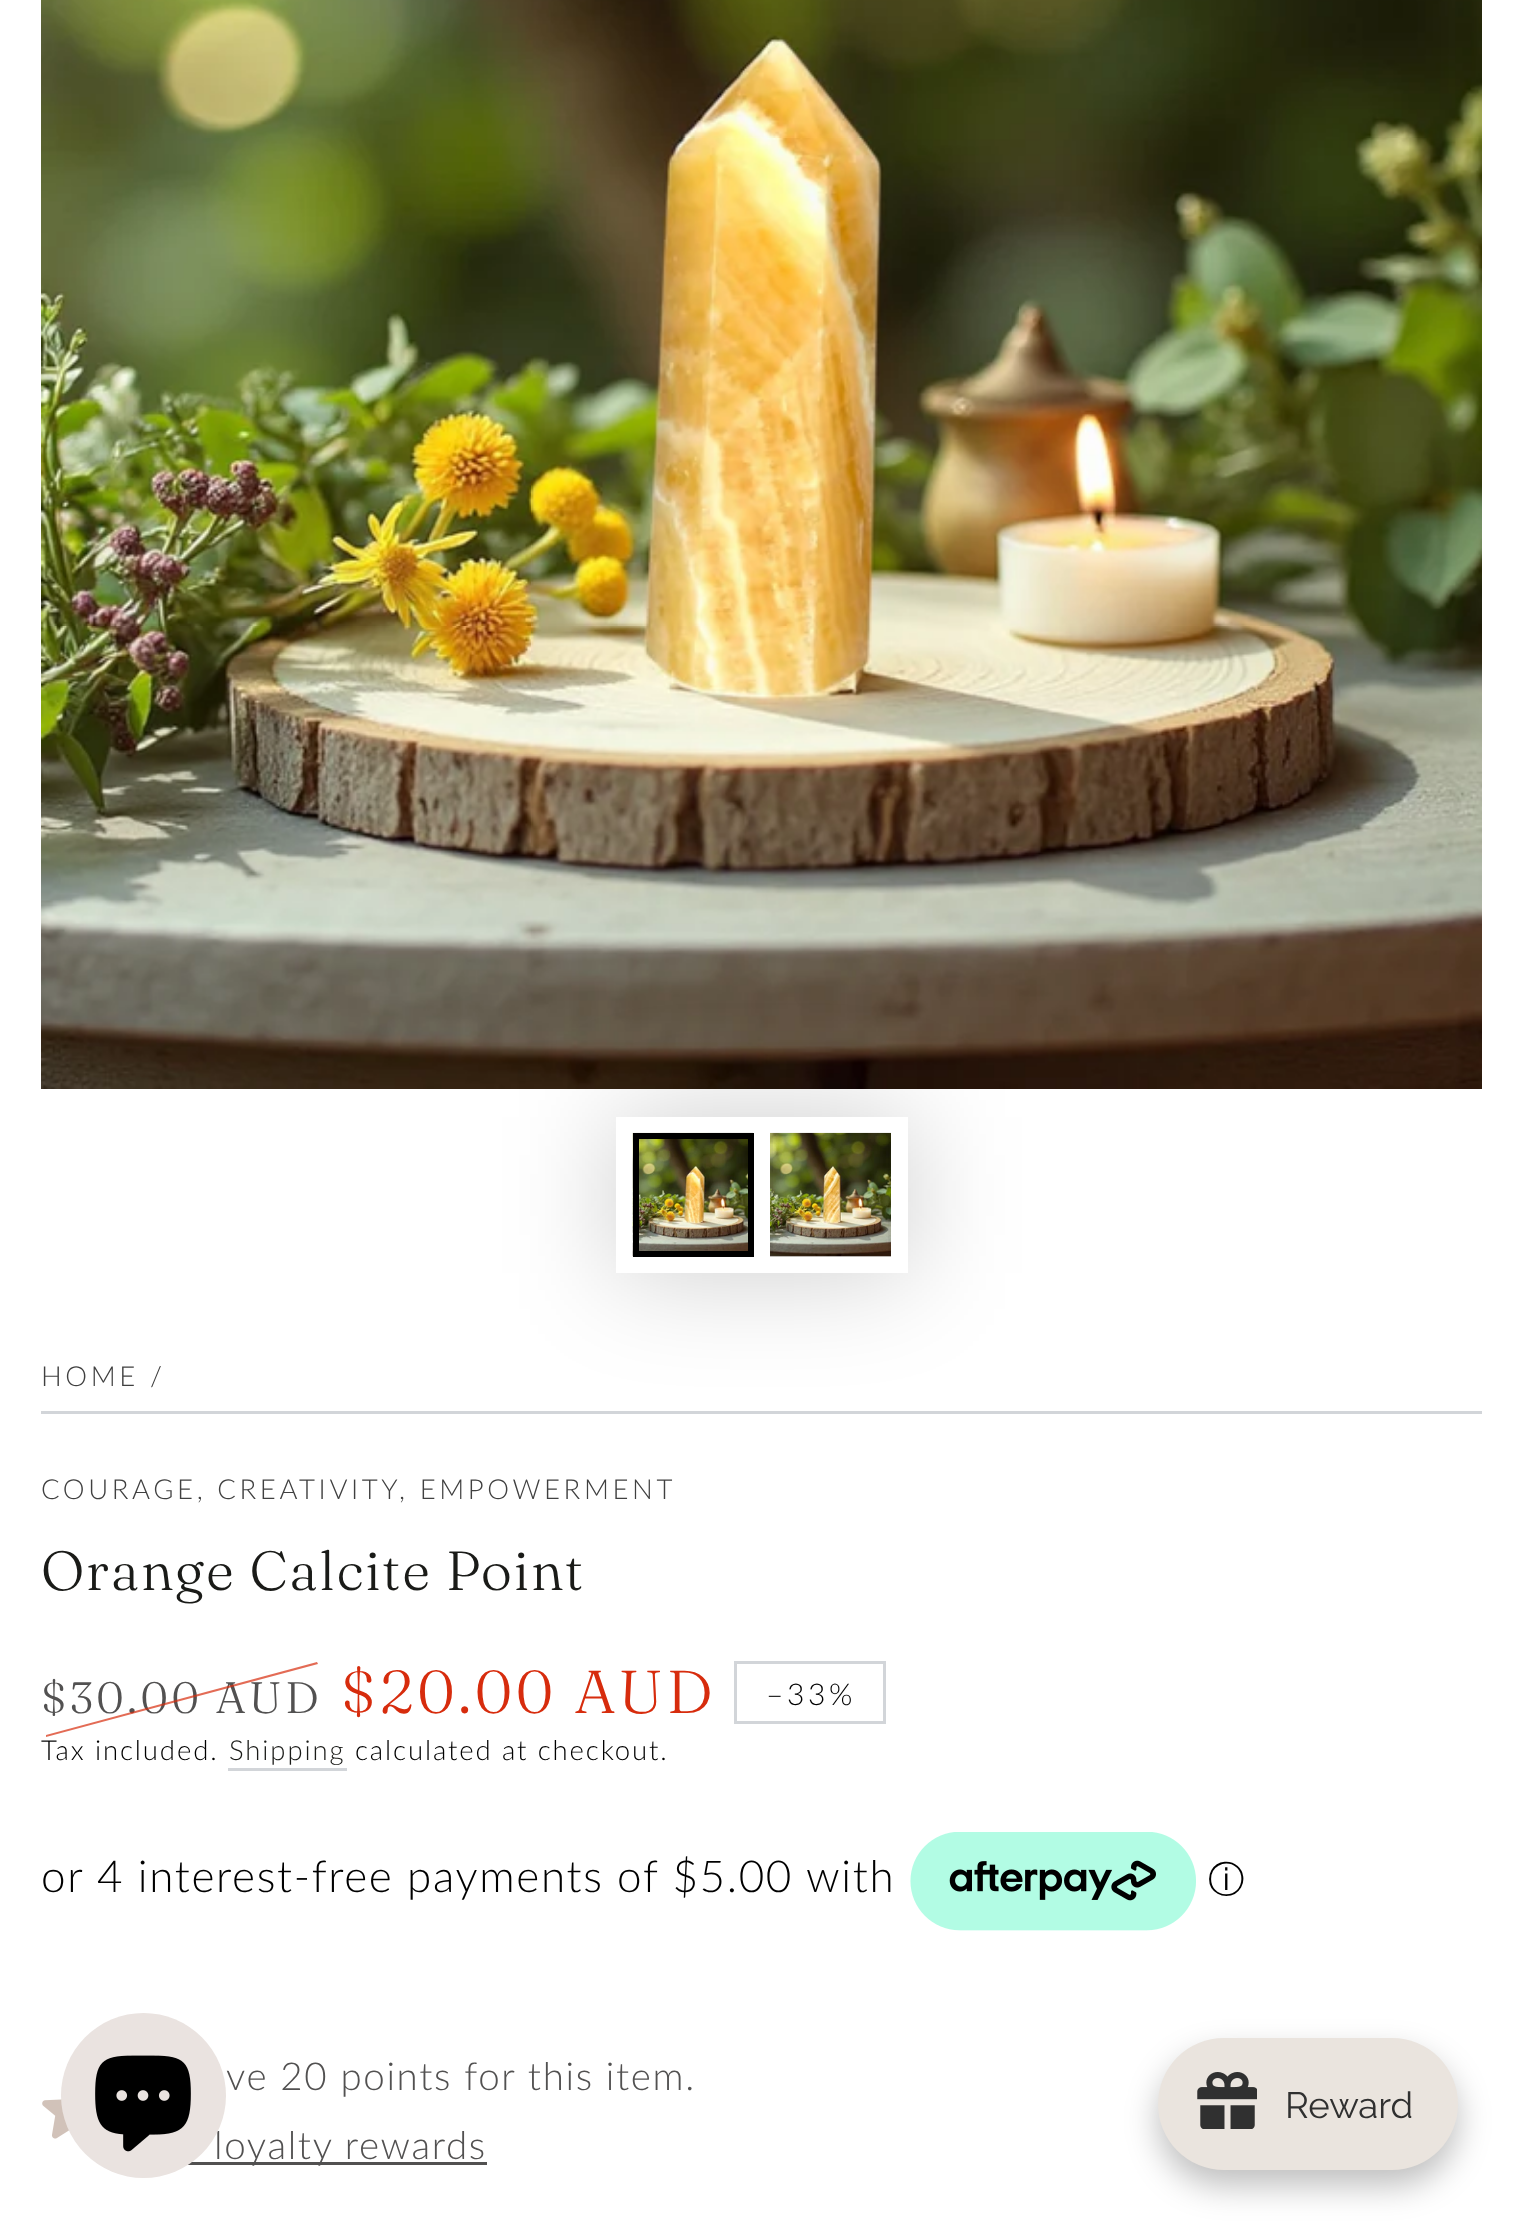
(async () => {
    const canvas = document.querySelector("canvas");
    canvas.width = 1521;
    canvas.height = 2234;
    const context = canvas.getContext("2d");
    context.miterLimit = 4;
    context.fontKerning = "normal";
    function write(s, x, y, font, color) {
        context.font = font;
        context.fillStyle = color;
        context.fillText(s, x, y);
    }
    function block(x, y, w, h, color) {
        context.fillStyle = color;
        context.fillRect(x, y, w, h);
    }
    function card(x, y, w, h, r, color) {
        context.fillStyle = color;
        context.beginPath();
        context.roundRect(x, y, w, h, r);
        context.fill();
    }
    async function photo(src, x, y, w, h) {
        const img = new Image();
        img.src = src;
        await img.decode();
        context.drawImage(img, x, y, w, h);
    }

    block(0, 0, 1521, 2234, "rgb(255, 255, 255)");
    await photo("media/1.png", 41, 0, 1441, 1089);
    block(41, 1411, 1441, 3, "rgb(210, 213, 217)");
    context.fillStyle = "rgba(0, 0, 0, 0.2)";
    context.filter = "blur(55px)";
    context.beginPath();
    context.rect(616, 1117, 292, 156);
    context.fill();
    context.filter = "none";
    block(616, 1117, 292, 156, "rgb(255, 255, 255)");
    await photo("media/2.png", 632, 1132, 121, 125);
    context.strokeStyle = "rgb(0, 0, 0)";
    context.lineWidth = 6;
    context.strokeRect(636, 1136, 115, 118);
    block(770, 1256, 121, 1, "rgb(243, 243, 243)");
    await photo("media/3.png", 770, 1132, 121, 125);
    context.strokeStyle = "rgba(0, 0, 0, 0.04)";
    context.lineWidth = 3;
    context.strokeRect(771.5, 1134.5, 118, 121);
    context.letterSpacing = "3.6px";
    write("HOME", 41, 1386, "300 27.5px Lato", "rgb(64, 64, 64)");
    write("/", 150, 1386, "300 27.5px Lato", "rgb(64, 64, 64)");
    write("COURAGE, CREATIVITY, EMPOWERMENT", 41, 1499, "300 27.5px Lato", "rgb(64, 64, 64)");
    context.letterSpacing = "1.65px";
    write("Orange Calcite Point", 41, 1590, "300 55px Fraunces", "rgb(26, 27, 24)");
    context.letterSpacing = "3.6px";
    context.wordSpacing = "-1px";
    write("$30.00 AUD", 41, 1713, "300 44px 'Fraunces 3'", "rgb(82, 81, 81)");
    context.fillStyle = "rgba(215, 44, 13, 0.7)";
    context.beginPath();
    context.moveTo(46, 1735);
    context.lineTo(317, 1662);
    context.lineTo(318, 1664);
    context.lineTo(46, 1737);
    context.closePath();
    context.fill();
    context.wordSpacing = "0px";
    write("$20.00 AUD", 341, 1713, "300 60.5px 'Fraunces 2'", "rgb(215, 44, 13)");
    context.strokeStyle = "rgb(210, 213, 217)";
    context.strokeRect(735.5, 1662.5, 149, 60);
    write("–33%", 766, 1705, "300 30px Lato", "rgb(0, 0, 0)");
    context.letterSpacing = "1.9px";
    write("Tax included.", 41, 1760, "300 27.5px Lato", "rgb(0, 0, 0)");
    write("Shipping", 229, 1760, "300 27.5px Lato", "rgb(26, 27, 24)");
    block(228, 1768, 119, 3, "rgb(210, 213, 217)");
    write("calculated at checkout.", 355, 1760, "300 27.5px Lato", "rgb(0, 0, 0)");
    context.letterSpacing = "1.65px";
    write("or 4 interest-free payments of $5.00", 41, 1892, "300 44px Lato", "rgb(0, 0, 0)");
    write("with", 806, 1892, "300 44px Lato", "rgb(0, 0, 0)");
    await photo("media/4.png", 910, 1832, 286, 99);
    context.letterSpacing = "0px";
    write("ⓘ", 1208, 1892, "500 36.5px WenQuanYi Zen Hei", "rgb(0, 0, 0)");
    await photo("media/5.png", 42, 2099, 27, 40);
    context.letterSpacing = "1.65px";
    write("ve 20 points for this item.", 226, 2090, "300 38.5px Lato", "rgb(82, 81, 81)");
    block(188, 2162, 299, 3, "rgb(82, 81, 81)");
    write("loyalty rewards", 214, 2159, "300 38.5px Lato", "rgb(82, 81, 81)");
    context.fillStyle = "rgb(234, 227, 224)";
    context.beginPath();
    context.arc(143.5, 2095.5, 82.5, 0, Math.PI * 2);
    context.fill();
    await photo("media/6.png", 95, 2055, 96, 97);
    context.fillStyle = "rgba(0, 0, 0, 0.25)";
    context.filter = "blur(16.5px)";
    context.beginPath();
    context.roundRect(1158, 2054, 300, 132, 66);
    context.fill();
    context.filter = "none";
    card(1158, 2038, 300, 132, 66, "rgb(234, 228, 222)");
    await photo("media/7.png", 1197, 2072, 60, 57);
    context.letterSpacing = "0px";
    write("Reward", 1285, 2118, "100 36.5px Raleway", "rgb(48, 48, 48)");
})();
